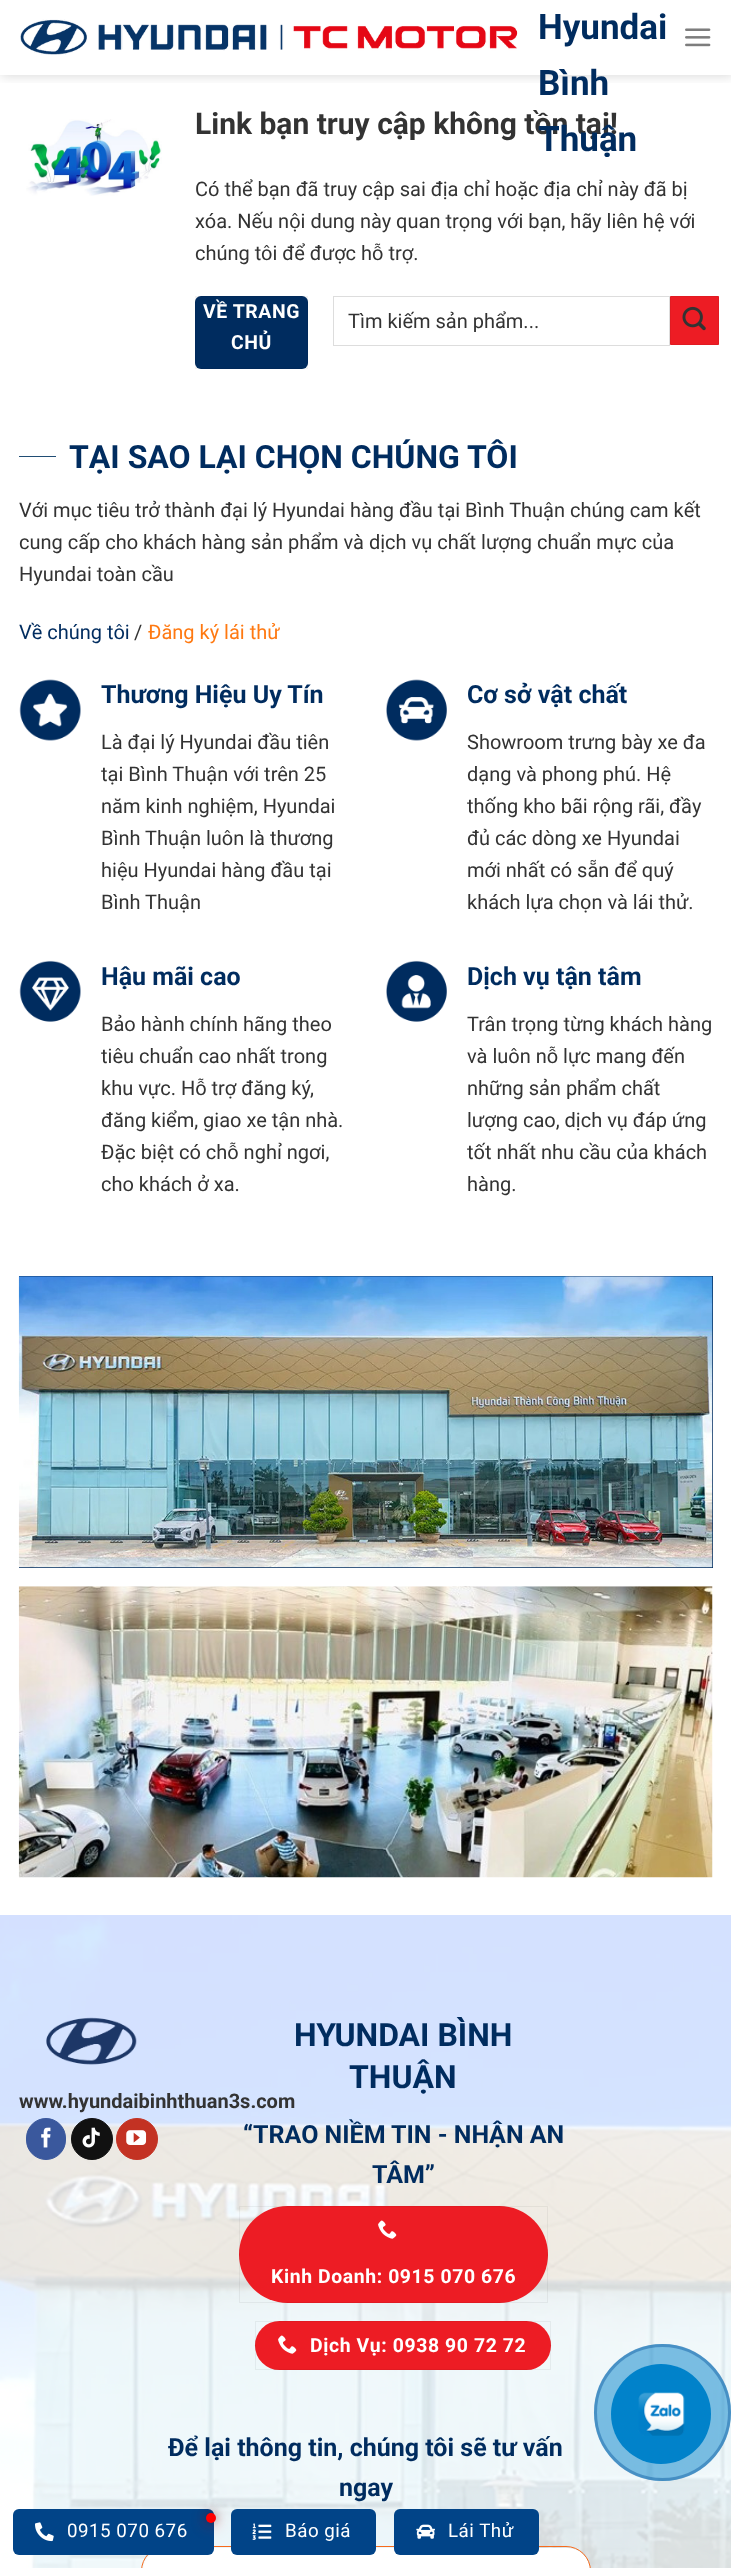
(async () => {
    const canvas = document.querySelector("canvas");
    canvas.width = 731;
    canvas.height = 2568;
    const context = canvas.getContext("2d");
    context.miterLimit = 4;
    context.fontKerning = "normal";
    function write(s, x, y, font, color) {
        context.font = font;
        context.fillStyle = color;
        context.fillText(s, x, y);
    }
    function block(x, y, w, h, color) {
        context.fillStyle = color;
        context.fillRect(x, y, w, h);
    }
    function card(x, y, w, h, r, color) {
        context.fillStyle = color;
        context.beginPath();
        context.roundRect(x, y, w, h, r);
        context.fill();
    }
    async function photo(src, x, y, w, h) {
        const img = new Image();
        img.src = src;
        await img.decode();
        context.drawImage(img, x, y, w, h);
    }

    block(0, 0, 731, 2568, "rgb(255, 255, 255)");
    context.save();
    context.beginPath();
    context.rect(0, 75, 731, 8);
    context.clip();
    context.fillStyle = "rgba(0, 0, 0, 0.15)";
    context.filter = "blur(6px)";
    context.beginPath();
    context.rect(1, 1, 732, 75);
    context.fill();
    context.filter = "none";
    context.restore();
    await photo("media/1.png", 20, 19, 498, 36);
    write("Hyundai", 538, 39, "bold 35px Roboto", "rgb(0, 44, 95)");
    write("Bình", 538, 95, "bold 35px Roboto", "rgb(0, 44, 95)");
    write("Link bạn truy cập không tồn tại!", 195, 134, "bold 30px Roboto", "rgb(51, 51, 51)");
    write("Thuận", 538, 151, "bold 35px Roboto", "rgb(0, 44, 95)");
    await photo("media/2.png", 685, 28, 26, 19);
    await photo("media/3.png", 26, 119, 136, 77);
    write("Có thể bạn đã truy cập sai địa chỉ hoặc địa chỉ này đã bị", 195, 196, "20px Roboto", "rgb(51, 51, 51)");
    write("xóa. Nếu nội dung này quan trọng với bạn, hãy liên hệ với", 195, 228, "20px Roboto", "rgb(51, 51, 51)");
    write("chúng tôi để được hỗ trợ.", 195, 260, "20px Roboto", "rgb(51, 51, 51)");
    card(195, 296, 113, 73, 6, "rgb(0, 44, 95)");
    context.strokeStyle = "rgba(0, 0, 0, 0.05)";
    context.strokeRect(195.5, 296.5, 112, 72);
    context.letterSpacing = "0.6px";
    write("VỀ TRANG", 203, 318, "bold 19.4px Roboto", "rgb(255, 255, 255)");
    write("CHỦ", 231, 349, "bold 19.4px Roboto", "rgb(255, 255, 255)");
    context.strokeStyle = "rgb(221, 221, 221)";
    context.strokeRect(333.5, 296.5, 336, 49);
    context.letterSpacing = "0px";
    write("Tìm kiếm sản phẩm...", 348, 328, "20px Roboto", "rgb(51, 51, 51)");
    context.fillStyle = "rgb(237, 28, 36)";
    context.beginPath();
    context.rect(670.5, 296.5, 48, 48);
    context.fill();
    context.strokeStyle = "rgb(225, 27, 34)";
    context.stroke();
    await photo("media/4.png", 682, 306, 24, 25);
    block(19, 456, 37, 1, "rgb(32, 77, 116)");
    write("TẠI SAO LẠI CHỌN CHÚNG TÔI", 69, 468, "bold 32px Roboto", "rgb(0, 44, 95)");
    write("Với mục tiêu trở thành đại lý Hyundai hàng đầu tại Bình Thuận chúng cam kết", 19, 517, "20px Roboto", "rgb(51, 51, 51)");
    write("cung cấp cho khách hàng sản phẩm và dịch vụ chất lượng chuẩn mực của", 19, 549, "20px Roboto", "rgb(51, 51, 51)");
    write("Hyundai toàn cầu", 19, 581, "20px Roboto", "rgb(51, 51, 51)");
    write("Về chúng tôi", 19, 639, "20px Roboto", "rgb(0, 44, 95)");
    write("/", 134, 639, "20px Roboto", "rgb(51, 51, 51)");
    write("Đăng ký lái thử", 148, 639, "20px Roboto", "rgb(255, 121, 17)");
    await photo("media/5.png", 19, 679, 62, 62);
    write("Thương Hiệu Uy Tín", 101, 703, "bold 25px Roboto", "rgb(0, 44, 95)");
    write("Là đại lý Hyundai đầu tiên", 101, 749, "20px Roboto", "rgb(51, 51, 51)");
    write("tại Bình Thuận với trên 25", 101, 781, "20px Roboto", "rgb(51, 51, 51)");
    write("năm kinh nghiệm, Hyundai", 101, 813, "20px Roboto", "rgb(51, 51, 51)");
    write("Bình Thuận luôn là thương", 101, 845, "20px Roboto", "rgb(51, 51, 51)");
    write("hiệu Hyundai hàng đầu tại", 101, 877, "20px Roboto", "rgb(51, 51, 51)");
    write("Bình Thuận", 101, 909, "20px Roboto", "rgb(51, 51, 51)");
    await photo("media/6.png", 386, 679, 61, 62);
    write("Cơ sở vật chất", 467, 703, "bold 25px Roboto", "rgb(0, 44, 95)");
    write("Showroom trưng bày xe đa", 467, 749, "20px Roboto", "rgb(51, 51, 51)");
    write("dạng và phong phú. Hệ", 467, 781, "20px Roboto", "rgb(51, 51, 51)");
    write("thống kho bãi rộng rãi, đầy", 467, 813, "20px Roboto", "rgb(51, 51, 51)");
    write("đủ các dòng xe Hyundai", 467, 845, "20px Roboto", "rgb(51, 51, 51)");
    write("mới nhất có sẵn để quý", 467, 877, "20px Roboto", "rgb(51, 51, 51)");
    write("khách lựa chọn và lái thử.", 467, 909, "20px Roboto", "rgb(51, 51, 51)");
    await photo("media/7.png", 19, 960, 62, 62);
    write("Hậu mãi cao", 101, 985, "bold 25px Roboto", "rgb(0, 44, 95)");
    write("Bảo hành chính hãng theo", 101, 1031, "20px Roboto", "rgb(51, 51, 51)");
    write("tiêu chuẩn cao nhất trong", 101, 1063, "20px Roboto", "rgb(51, 51, 51)");
    write("khu vực. Hỗ trợ đăng ký,", 101, 1095, "20px Roboto", "rgb(51, 51, 51)");
    write("đăng kiểm, giao xe tận nhà.", 101, 1127, "20px Roboto", "rgb(51, 51, 51)");
    write("Đặc biệt có chỗ nghỉ ngơi,", 101, 1159, "20px Roboto", "rgb(51, 51, 51)");
    write("cho khách ở xa.", 101, 1191, "20px Roboto", "rgb(51, 51, 51)");
    await photo("media/8.png", 386, 960, 61, 62);
    write("Dịch vụ tận tâm", 467, 985, "bold 25px Roboto", "rgb(0, 44, 95)");
    write("Trân trọng từng khách hàng", 467, 1031, "20px Roboto", "rgb(51, 51, 51)");
    write("và luôn nỗ lực mang đến", 467, 1063, "20px Roboto", "rgb(51, 51, 51)");
    write("những sản phẩm chất", 467, 1095, "20px Roboto", "rgb(51, 51, 51)");
    write("lượng cao, dịch vụ đáp ứng", 467, 1127, "20px Roboto", "rgb(51, 51, 51)");
    write("tốt nhất nhu cầu của khách", 467, 1159, "20px Roboto", "rgb(51, 51, 51)");
    write("hàng.", 467, 1191, "20px Roboto", "rgb(51, 51, 51)");
    block(19, 1276, 694, 292, "rgb(0, 44, 95)");
    await photo("media/9.png", 18, 1276, 695, 292);
    await photo("media/10.png", 18, 1586, 695, 292);
    await photo("media/11.png", 0, 1915, 731, 653);
    await photo("media/12.png", 46, 2017, 91, 48);
    write("www.hyundaibinhthuan3s.com", 19, 2108, "bold 20px Roboto", "rgb(51, 51, 51)");
    context.fillStyle = "rgb(58, 88, 157)";
    context.beginPath();
    context.roundRect(26.5, 2118.5, 39, 41, 19.5);
    context.fill();
    context.strokeStyle = "rgb(58, 88, 157)";
    context.stroke();
    await photo("media/13.png", 41, 2127, 10, 21);
    context.fillStyle = "rgb(17, 17, 17)";
    context.beginPath();
    context.arc(92, 2139, 20.5, 0, Math.PI * 2);
    context.fill();
    context.strokeStyle = "rgb(17, 17, 17)";
    context.stroke();
    await photo("media/14.png", 82, 2127, 18, 21);
    context.fillStyle = "rgb(195, 50, 35)";
    context.beginPath();
    context.arc(137, 2139, 20.5, 0, Math.PI * 2);
    context.fill();
    context.strokeStyle = "rgb(195, 50, 35)";
    context.stroke();
    await photo("media/15.png", 126, 2130, 21, 15);
    write("HYUNDAI BÌNH", 294, 2046, "bold 32px Roboto", "rgb(0, 44, 95)");
    write("THUẬN", 349, 2088, "bold 32px Roboto", "rgb(0, 44, 95)");
    write("“TRAO NIỀM TIN - NHẬN AN", 243, 2143, "bold 25px Roboto", "rgb(0, 44, 95)");
    write("TÂM”", 372, 2183, "bold 25px Roboto", "rgb(0, 44, 95)");
    card(239, 2206, 309, 97, 48.5, "rgb(237, 28, 36)");
    context.strokeStyle = "rgba(0, 0, 0, 0.05)";
    context.strokeRect(239.5, 2206.5, 308, 96);
    await photo("media/16.png", 378, 2220, 19, 19);
    context.letterSpacing = "0.6px";
    write("Kinh Doanh: 0915 070 676", 271, 2283, "bold 19.4px Roboto", "rgb(255, 255, 255)");
    card(255, 2321, 296, 49, 24.5, "rgb(237, 28, 36)");
    context.strokeRect(255.5, 2321.5, 295, 48);
    await photo("media/16.png", 278, 2335, 19, 19);
    write("Dịch Vụ: 0938 90 72 72", 310, 2352, "bold 19.4px Roboto", "rgb(255, 255, 255)");
    context.letterSpacing = "0px";
    write("Để lại thông tin, chúng tôi sẽ tư vấn", 168, 2456, "bold 25px Roboto", "rgb(0, 44, 95)");
    write("ngay", 339, 2496, "bold 25px Roboto", "rgb(0, 44, 95)");
    card(143, 2548, 447, 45, 25, "rgb(255, 255, 255)");
    context.beginPath();
    context.roundRect(141.5, 2546.5, 449, 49, 26);
    context.strokeStyle = "rgb(247, 107, 28)";
    context.stroke();
    card(13, 2509, 201, 46, 6, "rgb(1, 68, 136)");
    await photo("media/17.png", 35, 2522, 19, 20);
    context.letterSpacing = "0.5px";
    write("0915 070 676", 67, 2537, "18.75px Roboto", "rgb(255, 255, 255)");
    context.fillStyle = "rgba(255, 0, 0, 0.5)";
    context.filter = "blur(7.5px)";
    context.beginPath();
    context.roundRect(206, 2515, 10, 10, 5);
    context.fill();
    context.filter = "none";
    context.fillStyle = "rgba(0, 0, 0, 0.2)";
    context.filter = "blur(4.5px)";
    context.beginPath();
    context.roundRect(205, 2510, 13, 13, 6.5);
    context.fill();
    context.filter = "none";
    context.fillStyle = "rgb(255, 0, 0)";
    context.beginPath();
    context.arc(211, 2518, 5, 0, Math.PI * 2);
    context.fill();
    card(231, 2509, 145, 46, 6, "rgb(1, 68, 136)");
    await photo("media/18.png", 252, 2523, 20, 17);
    write("Báo giá", 285, 2537, "18.75px Roboto", "rgb(255, 255, 255)");
    card(394, 2509, 145, 46, 6, "rgb(1, 68, 136)");
    await photo("media/19.png", 416, 2524, 19, 15);
    write("Lái Thử", 448, 2537, "18.75px Roboto", "rgb(255, 255, 255)");
    context.fillStyle = "rgba(1, 130, 202, 0.5)";
    context.beginPath();
    context.arc(662.5, 2412.5, 68.5, 0, Math.PI * 2);
    context.fill();
    context.beginPath();
    context.arc(662.5, 2412.5, 67, 0, Math.PI * 2);
    context.strokeStyle = "rgba(21, 100, 167, 0.5)";
    context.lineWidth = 3;
    context.stroke();
    context.fillStyle = "rgb(1, 130, 202)";
    context.beginPath();
    context.arc(661, 2414, 50, 0, Math.PI * 2);
    context.fill();
    await photo("media/20.png", 638, 2392, 47, 44);
})();
